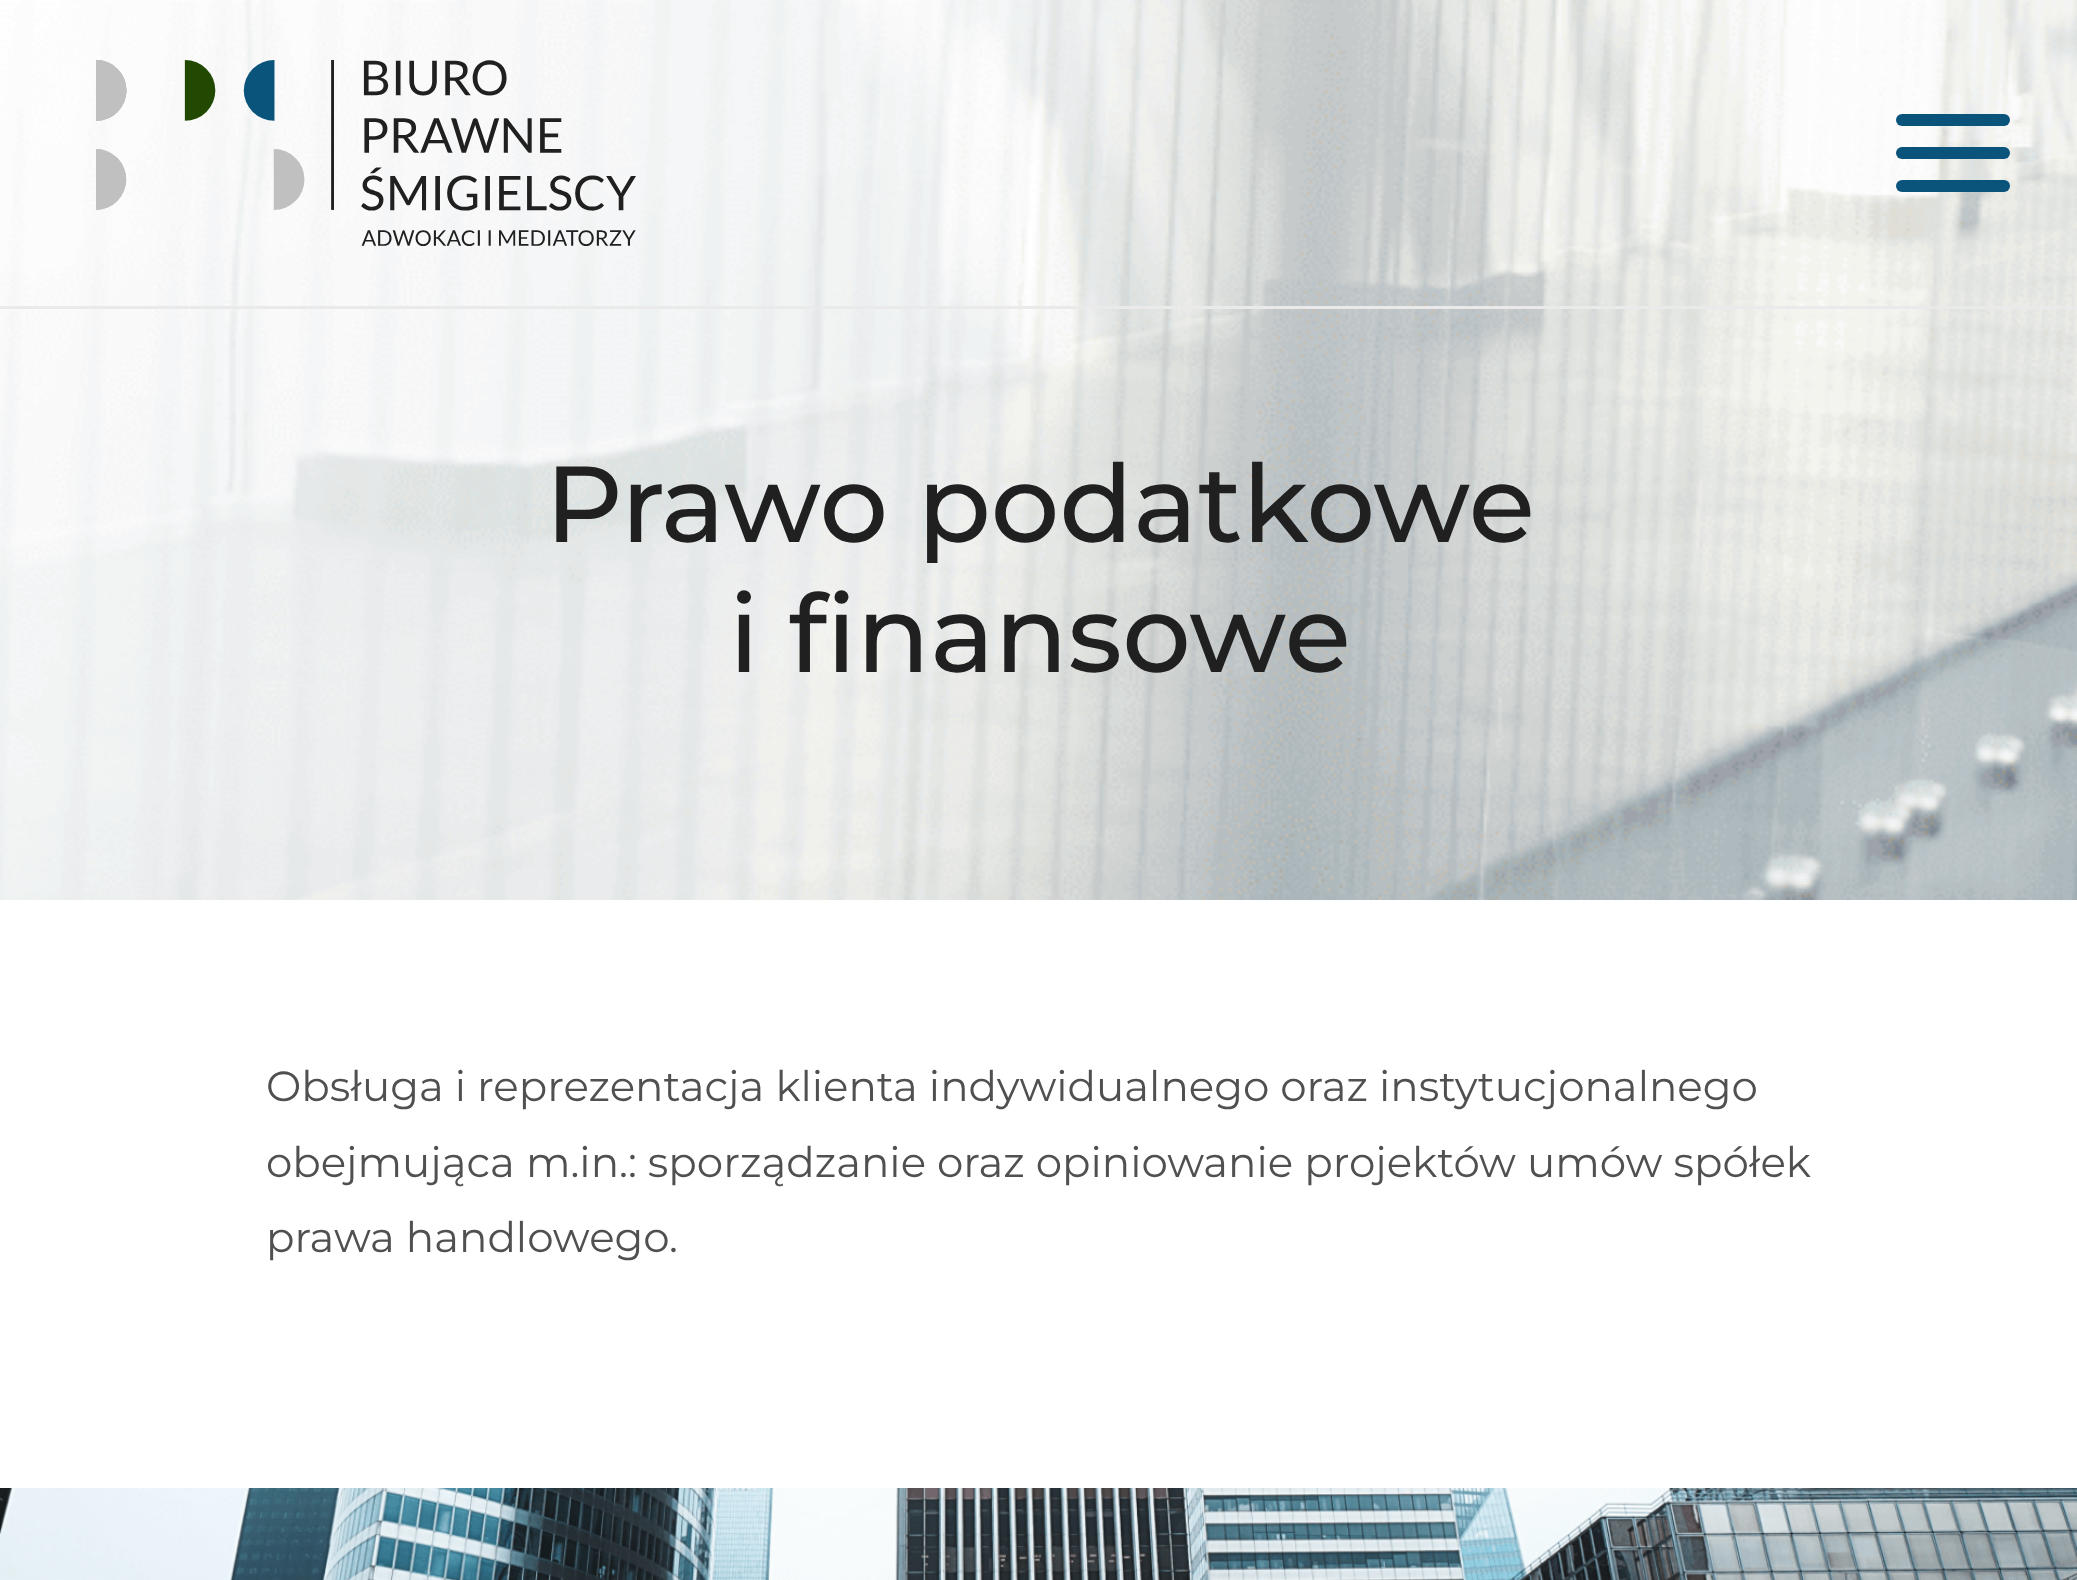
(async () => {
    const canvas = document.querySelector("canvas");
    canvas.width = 2077;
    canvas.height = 1580;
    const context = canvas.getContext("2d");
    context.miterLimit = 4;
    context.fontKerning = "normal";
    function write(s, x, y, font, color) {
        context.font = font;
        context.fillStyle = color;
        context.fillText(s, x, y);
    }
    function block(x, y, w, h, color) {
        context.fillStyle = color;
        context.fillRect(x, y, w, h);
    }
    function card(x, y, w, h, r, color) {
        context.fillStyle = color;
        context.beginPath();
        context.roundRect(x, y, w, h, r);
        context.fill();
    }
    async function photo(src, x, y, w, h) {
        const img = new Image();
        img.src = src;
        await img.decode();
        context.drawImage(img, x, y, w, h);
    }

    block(0, 0, 2077, 1580, "rgb(255, 255, 255)");
    await photo("media/2.png", 0, 0, 2077, 900);
    block(0, 306, 2077, 3, "rgb(234, 234, 234)");
    await photo("media/1.png", 96, 60, 540, 186);
    card(1896, 114, 114, 12, 6, "rgb(10, 84, 123)");
    card(1896, 147, 114, 12, 6, "rgb(10, 84, 123)");
    card(1896, 180, 114, 12, 6, "rgb(10, 84, 123)");
    write("Prawo podatkowe", 545, 542, "500 108px Montserrat", "rgb(32, 32, 32)");
    write("i finansowe", 729, 672, "500 108px Montserrat", "rgb(32, 32, 32)");
    write("Obsługa i reprezentacja klienta indywidualnego oraz instytucjonalnego", 266, 1101, "42px Montserrat", "rgb(80, 80, 80)");
    write("obejmująca m.in.: sporządzanie oraz opiniowanie projektów umów spółek", 266, 1177, "42px Montserrat", "rgb(80, 80, 80)");
    write("prawa handlowego.", 266, 1252, "42px Montserrat", "rgb(80, 80, 80)");
    await photo("media/3.png", 0, 1488, 2077, 92);
})();
